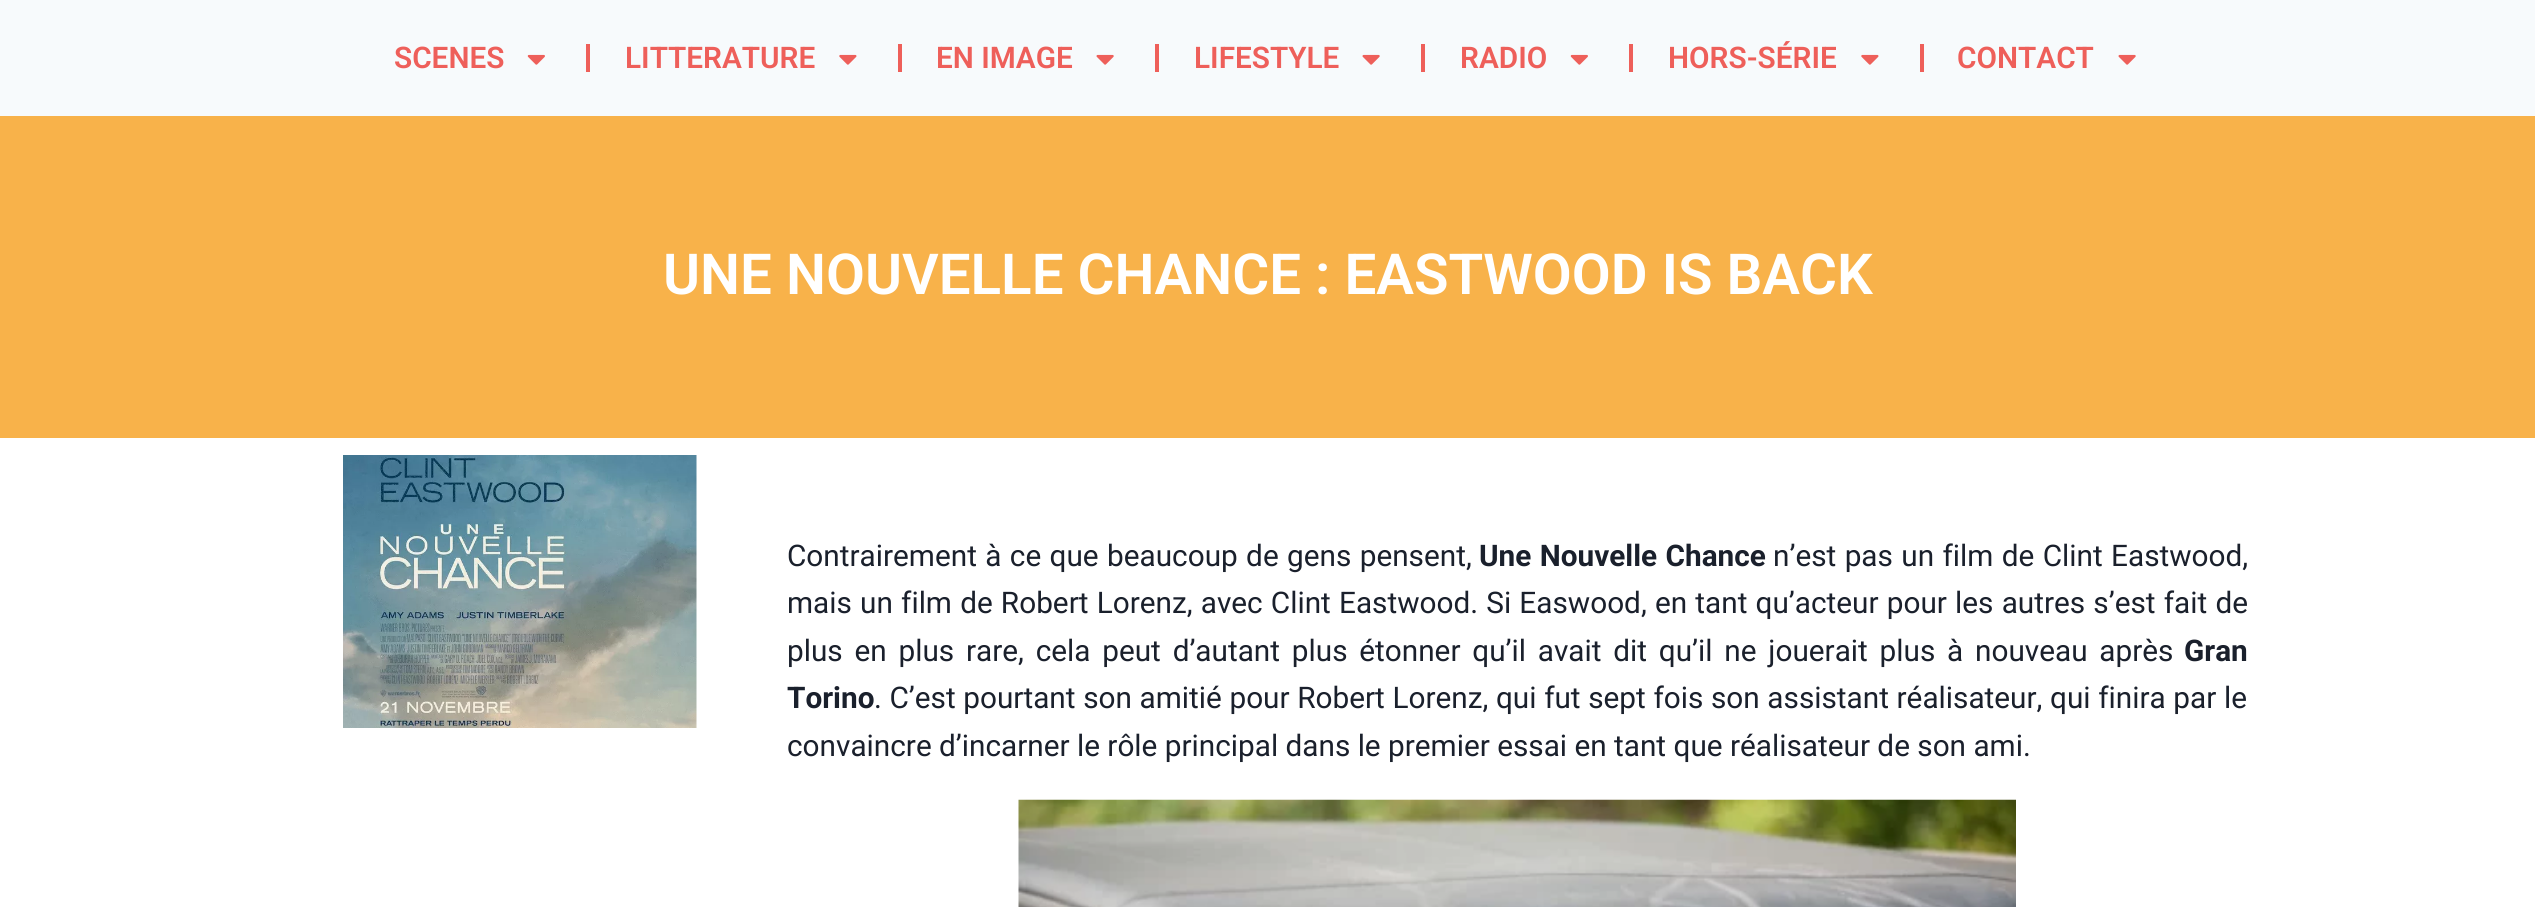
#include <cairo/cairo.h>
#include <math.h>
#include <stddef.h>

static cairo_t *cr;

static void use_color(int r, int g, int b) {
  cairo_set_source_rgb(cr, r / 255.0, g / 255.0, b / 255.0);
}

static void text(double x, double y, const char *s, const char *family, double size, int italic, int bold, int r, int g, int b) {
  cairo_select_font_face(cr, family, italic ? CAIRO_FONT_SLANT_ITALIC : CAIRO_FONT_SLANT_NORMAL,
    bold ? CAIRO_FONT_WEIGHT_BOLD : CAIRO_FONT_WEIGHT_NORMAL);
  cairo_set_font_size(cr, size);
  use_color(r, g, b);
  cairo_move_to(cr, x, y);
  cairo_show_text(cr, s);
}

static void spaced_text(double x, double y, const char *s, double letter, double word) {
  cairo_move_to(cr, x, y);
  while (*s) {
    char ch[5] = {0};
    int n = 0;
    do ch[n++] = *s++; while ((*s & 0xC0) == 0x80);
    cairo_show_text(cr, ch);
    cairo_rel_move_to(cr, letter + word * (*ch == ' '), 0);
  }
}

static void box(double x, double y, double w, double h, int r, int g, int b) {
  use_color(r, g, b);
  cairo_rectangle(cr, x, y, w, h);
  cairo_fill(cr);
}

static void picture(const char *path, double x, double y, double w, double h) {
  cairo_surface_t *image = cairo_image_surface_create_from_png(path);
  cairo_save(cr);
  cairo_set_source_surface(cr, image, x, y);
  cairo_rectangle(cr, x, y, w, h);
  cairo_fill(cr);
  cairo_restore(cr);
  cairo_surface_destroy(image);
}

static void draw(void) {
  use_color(247, 250, 252);
  cairo_paint(cr);
  picture("img_01.png", 527, 54, 18, 11);
  box(586, 44, 4, 28, 238, 95, 90);
  picture("img_02.png", 839, 54, 18, 11);
  box(898, 44, 4, 28, 238, 95, 90);
  picture("img_03.png", 1096, 54, 18, 11);
  box(1155, 44, 4, 28, 238, 95, 90);
  picture("img_03.png", 1362, 54, 18, 11);
  box(1421, 44, 4, 28, 238, 95, 90);
  picture("img_01.png", 1570, 54, 18, 11);
  box(1629, 44, 4, 28, 238, 95, 90);
  picture("img_02.png", 1861, 54, 18, 11);
  box(1920, 44, 4, 28, 238, 95, 90);
  picture("img_03.png", 2118, 54, 18, 11);
  box(0, 116, 2535, 322, 248, 178, 74);
  box(0, 438, 2535, 469, 255, 255, 255);
  picture("img_04.png", 343, 455, 354, 273);
  picture("img_05.png", 1018, 799, 998, 108);
  text(394, 68, "SCENES", "Roboto SemiBold", 29.75, 0, 0, 238, 95, 90);
  text(625, 68, "LITTERATURE", "Roboto SemiBold", 29.75, 0, 0, 238, 95, 90);
  text(936, 68, "EN IMAGE", "Roboto SemiBold", 29.75, 0, 0, 238, 95, 90);
  text(1194, 68, "LIFESTYLE", "Roboto SemiBold", 29.75, 0, 0, 238, 95, 90);
  text(1460, 68, "RADIO", "Roboto SemiBold", 29.75, 0, 0, 238, 95, 90);
  text(1668, 68, "HORS-SÉRIE", "Roboto SemiBold", 29.75, 0, 0, 238, 95, 90);
  text(1957, 68, "CONTACT", "Roboto SemiBold", 29.75, 0, 0, 238, 95, 90);
  text(663, 294, "UNE NOUVELLE CHANCE : EASTWOOD IS BACK", "Roboto SemiBold", 56.5, 0, 0, 255, 255, 255);
  cairo_select_font_face(cr, "Roboto", CAIRO_FONT_SLANT_NORMAL, CAIRO_FONT_WEIGHT_NORMAL);
  cairo_set_font_size(cr, 29.75);
  use_color(26, 32, 44);
  spaced_text(787, 566, "Contrairement à ce que beaucoup de gens pensent,", 0, 1);
  cairo_select_font_face(cr, "Roboto", CAIRO_FONT_SLANT_NORMAL, CAIRO_FONT_WEIGHT_BOLD);
  spaced_text(1479, 566, "Une Nouvelle Chance", 0, 1);
  cairo_select_font_face(cr, "Roboto", CAIRO_FONT_SLANT_NORMAL, CAIRO_FONT_WEIGHT_NORMAL);
  spaced_text(1773, 566, "n’est pas un film de Clint Eastwood,", 0, 1);
  spaced_text(787, 613, "mais un film de Robert Lorenz, avec Clint Eastwood. Si Easwood, en tant qu’acteur pour les autres s’est fait de", 0, 0.8);
  spaced_text(787, 661, "plus en plus rare, cela peut d’autant plus étonner qu’il avait dit qu’il ne jouerait plus à nouveau après", 0, 4.4);
  text(2184, 661, "Gran", "Roboto", 29.75, 0, 1, 26, 32, 44);
  text(787, 708, "Torino", "Roboto", 29.75, 0, 1, 26, 32, 44);
  cairo_select_font_face(cr, "Roboto", CAIRO_FONT_SLANT_NORMAL, CAIRO_FONT_WEIGHT_NORMAL);
  spaced_text(874, 708, ". C’est pourtant son amitié pour Robert Lorenz, qui fut sept fois son assistant réalisateur, qui finira par le", 0, 0.25);
  text(787, 756, "convaincre d’incarner le rôle principal dans le premier essai en tant que réalisateur de son ami.", "Roboto", 29.75, 0, 0, 26, 32, 44);
}

int main(void) {
  cairo_surface_t *surface = cairo_image_surface_create(CAIRO_FORMAT_RGB24, 2535, 907);
  cr = cairo_create(surface);
  cairo_font_options_t *options = cairo_font_options_create();
  cairo_font_options_set_hint_metrics(options, CAIRO_HINT_METRICS_OFF);
  cairo_font_options_set_hint_style(options, CAIRO_HINT_STYLE_NONE);
  cairo_set_font_options(cr, options);
  cairo_set_miter_limit(cr, 4);
  draw();
  cairo_surface_write_to_png(surface, "out.png");
  cairo_font_options_destroy(options);
  cairo_destroy(cr);
  cairo_surface_destroy(surface);
  return 0;
}
